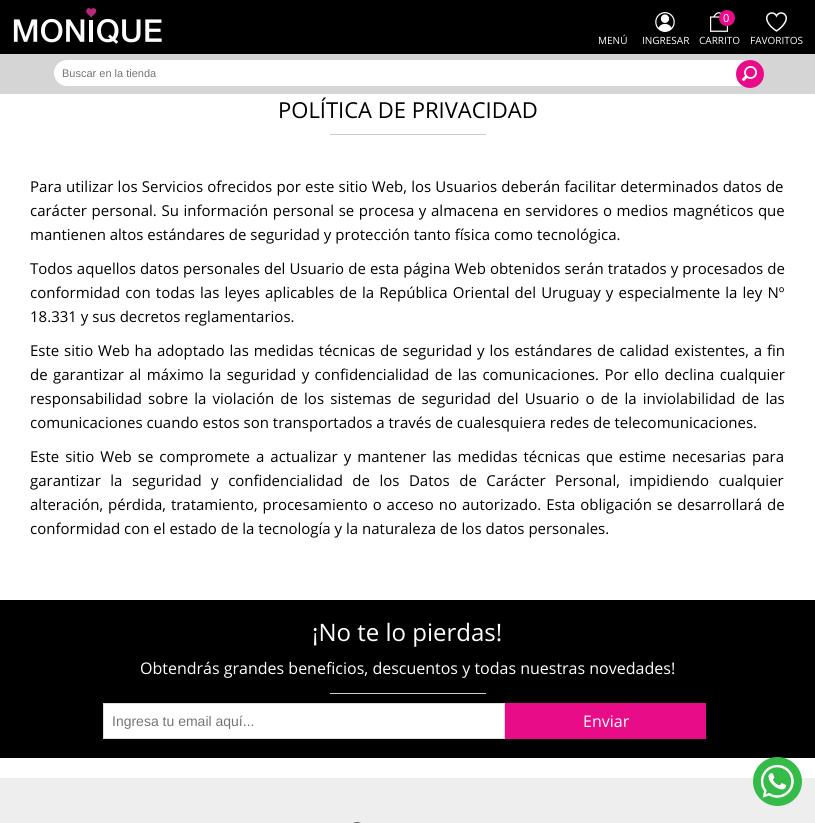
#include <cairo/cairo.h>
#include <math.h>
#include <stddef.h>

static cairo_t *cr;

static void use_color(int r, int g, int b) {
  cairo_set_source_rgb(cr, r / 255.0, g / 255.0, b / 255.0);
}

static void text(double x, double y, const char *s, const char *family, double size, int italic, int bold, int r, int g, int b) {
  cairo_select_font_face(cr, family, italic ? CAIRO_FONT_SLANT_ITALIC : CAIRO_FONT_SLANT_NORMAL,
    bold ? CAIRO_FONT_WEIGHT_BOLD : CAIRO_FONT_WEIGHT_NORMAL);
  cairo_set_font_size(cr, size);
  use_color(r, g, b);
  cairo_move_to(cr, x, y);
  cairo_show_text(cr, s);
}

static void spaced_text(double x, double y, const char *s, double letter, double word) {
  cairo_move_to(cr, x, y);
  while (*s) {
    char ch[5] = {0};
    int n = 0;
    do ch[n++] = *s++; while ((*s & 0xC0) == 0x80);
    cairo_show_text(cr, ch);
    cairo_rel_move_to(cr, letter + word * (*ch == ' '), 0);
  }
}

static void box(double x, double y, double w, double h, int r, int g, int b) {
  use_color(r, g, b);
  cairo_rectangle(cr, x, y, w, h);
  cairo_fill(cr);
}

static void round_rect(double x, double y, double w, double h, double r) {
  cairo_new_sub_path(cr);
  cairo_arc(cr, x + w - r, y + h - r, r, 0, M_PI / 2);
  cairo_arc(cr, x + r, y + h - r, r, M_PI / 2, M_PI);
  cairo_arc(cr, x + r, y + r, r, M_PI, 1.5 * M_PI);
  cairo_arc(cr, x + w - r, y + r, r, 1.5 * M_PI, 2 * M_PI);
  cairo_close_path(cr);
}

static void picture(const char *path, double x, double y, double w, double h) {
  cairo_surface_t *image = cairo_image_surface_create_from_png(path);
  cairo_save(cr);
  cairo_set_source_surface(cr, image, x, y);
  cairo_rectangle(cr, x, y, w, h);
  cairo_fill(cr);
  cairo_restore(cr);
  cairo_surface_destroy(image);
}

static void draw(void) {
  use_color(255, 255, 255);
  cairo_paint(cr);
  box(0, 0, 815, 54, 0, 0, 0);
  picture("img_01.png", 13, 8, 149, 36);
  picture("img_02.png", 655, 12, 20, 20);
  picture("img_03.png", 710, 12, 18, 20);
  use_color(234, 11, 138);
  cairo_arc(cr, 727, 18, 8, 0, 2 * M_PI);
  cairo_fill(cr);
  picture("img_04.png", 766, 12, 21, 20);
  box(0, 54, 815, 40, 213, 213, 213);
  use_color(255, 255, 255);
  round_rect(54, 60, 707, 26, 13);
  cairo_fill(cr);
  use_color(234, 11, 138);
  cairo_arc(cr, 750, 74, 14, 0, 2 * M_PI);
  cairo_fill(cr);
  picture("img_05.png", 742, 66, 15, 15);
  box(330, 134, 156, 1, 204, 204, 204);
  box(0, 600, 815, 158, 0, 0, 0);
  box(330, 693, 156, 1, 204, 204, 204);
  use_color(255, 255, 255);
  cairo_rectangle(cr, 103.5, 703.5, 401, 35);
  cairo_fill_preserve(cr);
  use_color(221, 221, 221);
  cairo_set_line_width(cr, 1);
  cairo_stroke(cr);
  box(505, 703, 201, 36, 232, 12, 136);
  box(0, 778, 815, 45, 238, 238, 238);
  picture("img_06.png", 753, 757, 49, 49);
  round_rect(349.5, 822.5, 15, 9, 7.5);
  use_color(102, 102, 102);
  cairo_stroke(cr);
  text(598, 44, "MENÚ", "Open Sans", 10, 0, 0, 255, 255, 255);
  text(642, 44, "INGRESAR", "Open Sans", 10, 0, 0, 255, 255, 255);
  cairo_set_font_size(cr, 11);
  spaced_text(723, 22, "0", -1, 0);
  text(699, 44, "CARRITO", "Open Sans", 10, 0, 0, 255, 255, 255);
  text(750, 44, "FAVORITOS", "Open Sans", 10, 0, 0, 255, 255, 255);
  text(62, 77, "Buscar en la tienda", "Liberation Sans", 11, 0, 0, 117, 117, 117);
  text(278, 118, "POLÍTICA DE PRIVACIDAD", "Open Sans", 22, 0, 0, 0, 0, 0);
  cairo_set_font_size(cr, 15);
  spaced_text(30, 192, "Para utilizar los Servicios ofrecidos por este sitio Web, los Usuarios deberán facilitar determinados datos de", 0, 0.3);
  spaced_text(30, 216, "carácter personal. Su información personal se procesa y almacena en servidores o medios magnéticos que", 0, 0.7);
  text(30, 240, "mantienen altos estándares de seguridad y protección tanto física como tecnológica.", "Open Sans", 15, 0, 0, 0, 0, 0);
  spaced_text(30, 274, "Todos aquellos datos personales del Usuario de esta página Web obtenidos serán tratados y procesados de", 0, 0.2);
  spaced_text(30, 298, "conformidad con todas las leyes aplicables de la República Oriental del Uruguay y especialmente la ley Nº", 0, 1.25);
  text(30, 322, "18.331 y sus decretos reglamentarios.", "Open Sans", 15, 0, 0, 0, 0, 0);
  spaced_text(30, 356, "Este sitio Web ha adoptado las medidas técnicas de seguridad y los estándares de calidad existentes, a fin", 0, 1);
  spaced_text(30, 380, "de garantizar al máximo la seguridad y confidencialidad de las comunicaciones. Por ello declina cualquier", 0, 1.5);
  spaced_text(30, 404, "responsabilidad sobre la violación de los sistemas de seguridad del Usuario o de la inviolabilidad de las", 0, 2.25);
  text(30, 428, "comunicaciones cuando estos son transportados a través de cualesquiera redes de telecomunicaciones.", "Open Sans", 15, 0, 0, 0, 0, 0);
  spaced_text(30, 462, "Este sitio Web se compromete a actualizar y mantener las medidas técnicas que estime necesarias para", 0, 2.1);
  spaced_text(30, 486, "garantizar la seguridad y confidencialidad de los Datos de Carácter Personal, impidiendo cualquier", 0, 5.6);
  spaced_text(30, 510, "alteración, pérdida, tratamiento, procesamiento o acceso no autorizado. Esta obligación se desarrollará de", 0, 1);
  text(30, 534, "conformidad con el estado de la tecnología y la naturaleza de los datos personales.", "Open Sans", 15, 0, 0, 0, 0, 0);
  text(312, 641, "¡No te lo pierdas!", "Open Sans", 24, 0, 0, 255, 255, 255);
  text(140, 674, "Obtendrás grandes beneficios, descuentos y todas nuestras novedades!", "Open Sans", 16, 0, 0, 255, 255, 255);
  text(112, 726, "Ingresa tu email aquí...", "Liberation Sans", 14, 0, 0, 117, 117, 117);
  text(583, 727, "Enviar", "Open Sans", 16, 0, 0, 255, 255, 255);
}

int main(void) {
  cairo_surface_t *surface = cairo_image_surface_create(CAIRO_FORMAT_RGB24, 815, 823);
  cr = cairo_create(surface);
  cairo_font_options_t *options = cairo_font_options_create();
  cairo_font_options_set_hint_metrics(options, CAIRO_HINT_METRICS_OFF);
  cairo_font_options_set_hint_style(options, CAIRO_HINT_STYLE_NONE);
  cairo_set_font_options(cr, options);
  cairo_set_miter_limit(cr, 4);
  draw();
  cairo_surface_write_to_png(surface, "out.png");
  cairo_font_options_destroy(options);
  cairo_destroy(cr);
  cairo_surface_destroy(surface);
  return 0;
}
